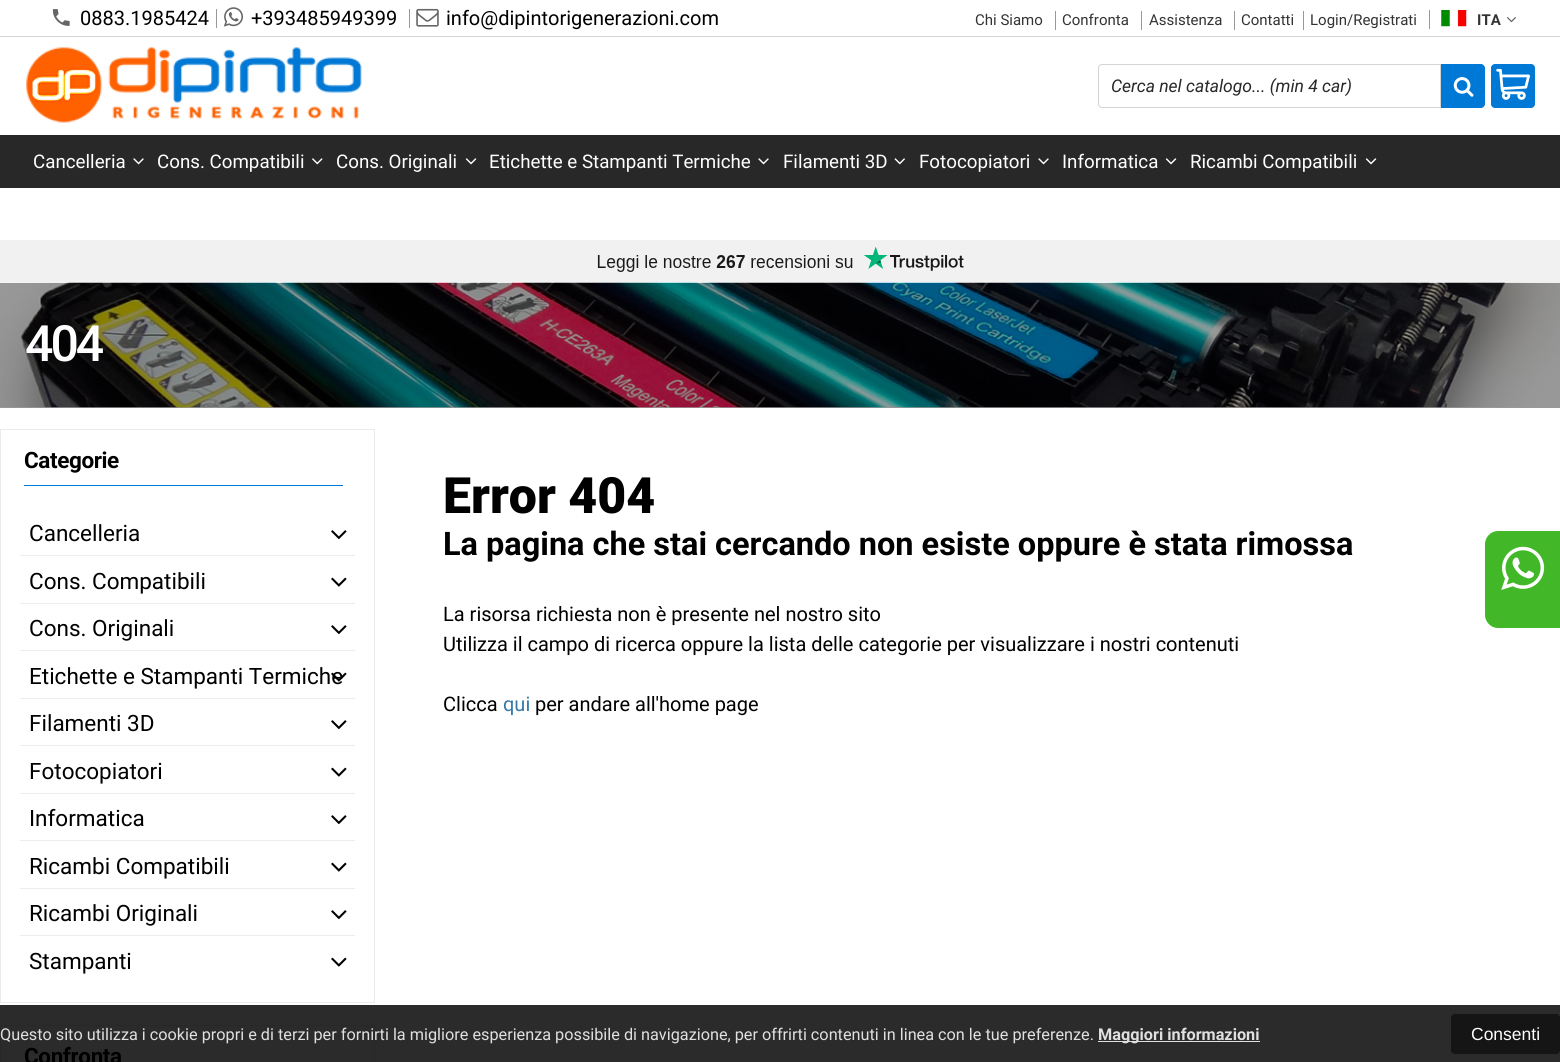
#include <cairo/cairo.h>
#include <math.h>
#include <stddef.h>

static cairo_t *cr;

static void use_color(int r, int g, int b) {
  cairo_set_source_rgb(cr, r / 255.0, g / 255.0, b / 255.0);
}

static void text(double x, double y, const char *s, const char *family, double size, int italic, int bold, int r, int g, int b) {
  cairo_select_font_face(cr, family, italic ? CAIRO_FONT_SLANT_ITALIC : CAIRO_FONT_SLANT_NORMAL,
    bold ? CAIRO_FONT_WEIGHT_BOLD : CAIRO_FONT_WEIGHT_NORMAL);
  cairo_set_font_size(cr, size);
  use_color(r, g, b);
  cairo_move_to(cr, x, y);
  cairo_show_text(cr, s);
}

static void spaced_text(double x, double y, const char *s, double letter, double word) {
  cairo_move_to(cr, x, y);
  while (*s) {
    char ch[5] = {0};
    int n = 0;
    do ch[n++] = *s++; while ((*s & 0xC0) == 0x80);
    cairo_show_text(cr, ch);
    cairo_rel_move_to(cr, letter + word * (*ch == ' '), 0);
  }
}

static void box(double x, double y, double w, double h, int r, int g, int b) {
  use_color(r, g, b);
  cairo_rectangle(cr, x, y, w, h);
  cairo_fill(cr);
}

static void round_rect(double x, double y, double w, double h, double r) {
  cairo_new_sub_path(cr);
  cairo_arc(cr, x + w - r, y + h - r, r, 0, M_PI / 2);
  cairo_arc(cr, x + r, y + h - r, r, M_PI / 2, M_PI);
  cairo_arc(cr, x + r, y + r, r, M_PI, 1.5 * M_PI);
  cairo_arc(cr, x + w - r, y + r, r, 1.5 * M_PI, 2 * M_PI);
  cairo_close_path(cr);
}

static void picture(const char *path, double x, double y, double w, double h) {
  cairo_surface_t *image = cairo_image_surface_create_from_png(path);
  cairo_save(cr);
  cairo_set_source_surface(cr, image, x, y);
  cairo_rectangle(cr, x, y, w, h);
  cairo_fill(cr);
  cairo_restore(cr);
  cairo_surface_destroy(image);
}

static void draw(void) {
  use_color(255, 255, 255);
  cairo_paint(cr);
  box(0, 1005, 1560, 57, 43, 43, 43);
  box(0, 407, 1560, 1, 153, 153, 153);
  box(0, 36, 1560, 1, 214, 212, 212);
  picture("img_01.png", 52, 9, 18, 17);
  box(216, 9, 1, 19, 152, 152, 152);
  picture("img_02.png", 223, 7, 20, 20);
  box(409, 9, 1, 19, 152, 152, 152);
  picture("img_03.png", 416, 8, 23, 19);
  box(1055, 11, 1, 19, 152, 152, 152);
  box(1141, 11, 1, 19, 152, 152, 152);
  box(1234, 11, 1, 19, 152, 152, 152);
  box(1303, 11, 1, 19, 152, 152, 152);
  box(1429, 10, 1, 19, 152, 152, 152);
  picture("img_04.png", 1441, 10, 26, 17);
  picture("img_05.png", 1507, 17, 9, 6);
  picture("img_06.png", 26, 47, 336, 76);
  cairo_new_path(cr);
  cairo_move_to(cr, 1102, 64.5);
  cairo_line_to(cr, 1440.5, 64.5);
  cairo_line_to(cr, 1440.5, 107.5);
  cairo_line_to(cr, 1102, 107.5);
  cairo_curve_to(cr, 1100, 107.5, 1098.5, 106, 1098.5, 104);
  cairo_line_to(cr, 1098.5, 68);
  cairo_curve_to(cr, 1098.5, 66, 1100, 64.5, 1102, 64.5);
  cairo_close_path(cr);
  use_color(213, 212, 212);
  cairo_set_line_width(cr, 1);
  cairo_stroke(cr);
  use_color(0, 120, 213);
  cairo_new_path(cr);
  cairo_move_to(cr, 1441, 64);
  cairo_line_to(cr, 1481, 64);
  cairo_curve_to(cr, 1483, 64, 1485, 66, 1485, 68);
  cairo_line_to(cr, 1485, 104);
  cairo_curve_to(cr, 1485, 106, 1483, 108, 1481, 108);
  cairo_line_to(cr, 1441, 108);
  cairo_close_path(cr);
  cairo_fill(cr);
  picture("img_07.png", 1453, 77, 21, 20);
  round_rect(1491, 64, 44, 44, 4);
  cairo_fill(cr);
  picture("img_08.png", 1496, 68, 34, 32);
  box(0, 135, 1560, 53, 40, 40, 40);
  picture("img_09.png", 133, 158, 11, 7);
  picture("img_10.png", 312, 158, 11, 7);
  picture("img_11.png", 465, 158, 12, 7);
  picture("img_09.png", 758, 158, 11, 7);
  picture("img_12.png", 894, 158, 11, 7);
  picture("img_09.png", 1038, 158, 11, 7);
  picture("img_11.png", 1165, 158, 12, 7);
  picture("img_11.png", 1365, 158, 12, 7);
  box(1098, 1041, 162, 1, 224, 224, 224);
  use_color(21, 21, 21);
  round_rect(1451, 1014, 109, 40, 4);
  cairo_fill(cr);
  box(0, 240, 1560, 43, 241, 241, 241);
  picture("img_13.png", 597, 246, 367, 26);
  picture("img_14.png", 0, 282, 1560, 126);
  cairo_rectangle(cr, 0.5, 429.5, 374, 573);
  use_color(235, 235, 235);
  cairo_stroke(cr);
  box(24, 485, 319, 1, 0, 120, 213);
  picture("img_15.png", 331, 530, 16, 10);
  box(20, 555, 335, 1, 236, 236, 236);
  picture("img_16.png", 331, 577, 16, 10);
  box(20, 603, 335, 1, 236, 236, 236);
  picture("img_15.png", 331, 625, 16, 10);
  box(20, 650, 335, 1, 236, 236, 236);
  picture("img_16.png", 331, 672, 16, 10);
  box(20, 698, 335, 1, 236, 236, 236);
  picture("img_15.png", 331, 720, 16, 10);
  box(20, 745, 335, 1, 236, 236, 236);
  picture("img_16.png", 331, 767, 16, 10);
  box(20, 793, 335, 1, 236, 236, 236);
  picture("img_15.png", 331, 815, 16, 10);
  box(20, 840, 335, 1, 236, 236, 236);
  picture("img_16.png", 331, 862, 16, 10);
  box(20, 888, 335, 1, 236, 236, 236);
  picture("img_15.png", 331, 910, 16, 10);
  box(20, 935, 335, 1, 236, 236, 236);
  picture("img_16.png", 331, 957, 16, 10);
  cairo_rectangle(cr, 0.5, 1025.5, 374, 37);
  use_color(40, 40, 40);
  cairo_stroke(cr);
  use_color(66, 183, 40);
  cairo_new_path(cr);
  cairo_move_to(cr, 1498, 531);
  cairo_line_to(cr, 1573, 531);
  cairo_line_to(cr, 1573, 628);
  cairo_line_to(cr, 1498, 628);
  cairo_curve_to(cr, 1491, 628, 1485, 622, 1485, 615);
  cairo_line_to(cr, 1485, 544);
  cairo_curve_to(cr, 1485, 537, 1491, 531, 1498, 531);
  cairo_close_path(cr);
  cairo_fill(cr);
  picture("img_17.png", 1501, 546, 44, 44);
  text(80, 25, "0883.1985424", "Roboto", 20, 0, 0, 0, 0, 0);
  text(251, 25, "+393485949399", "Roboto", 20, 0, 0, 0, 0, 0);
  text(446, 25, "info@dipintorigenerazioni.com", "Roboto", 20, 0, 0, 0, 0, 0);
  text(975, 25, "Chi Siamo", "Roboto", 15, 0, 0, 51, 51, 51);
  text(1062, 25, "Confronta", "Roboto", 15, 0, 0, 51, 51, 51);
  text(1149, 25, "Assistenza", "Roboto", 15, 0, 0, 51, 51, 51);
  text(1241, 25, "Contatti", "Roboto", 15, 0, 0, 51, 51, 51);
  text(1310, 25, "Login/Registrati", "Roboto", 15, 0, 0, 51, 51, 51);
  text(1477, 25, "ITA", "Roboto", 15, 0, 1, 51, 51, 51);
  text(1111, 92, "Cerca nel catalogo... (min 4 car)", "Roboto", 17.5, 1, 0, 40, 40, 40);
  text(33, 168, "Cancelleria", "Roboto", 18.75, 0, 0, 255, 255, 255);
  text(157, 168, "Cons. Compatibili", "Roboto", 18.75, 0, 0, 255, 255, 255);
  text(336, 168, "Cons. Originali", "Roboto", 18.75, 0, 0, 255, 255, 255);
  text(489, 168, "Etichette e Stampanti Termiche", "Roboto", 18.75, 0, 0, 255, 255, 255);
  text(783, 168, "Filamenti 3D", "Roboto", 18.75, 0, 0, 255, 255, 255);
  text(919, 168, "Fotocopiatori", "Roboto", 18.75, 0, 0, 255, 255, 255);
  text(1062, 168, "Informatica", "Roboto", 18.75, 0, 0, 255, 255, 255);
  text(1190, 168, "Ricambi Compatibili", "Roboto", 18.75, 0, 0, 255, 255, 255);
  text(0, 1040, "Questo sito utilizza i cookie propri e di terzi per fornirti la migliore esperienza possibile di navigazione, per offrirti contenuti in linea con le tue preferenze.", "Roboto", 16.25, 0, 0, 224, 224, 224);
  text(1098, 1040, "Maggiori informazioni", "Roboto", 16.25, 0, 1, 224, 224, 224);
  text(1471, 1040, "Consenti", "Liberation Sans", 17.5, 0, 0, 255, 255, 255);
  cairo_select_font_face(cr, "Roboto Medium", CAIRO_FONT_SLANT_NORMAL, CAIRO_FONT_WEIGHT_NORMAL);
  cairo_set_font_size(cr, 50);
  spaced_text(25, 361, "404", -3, 0);
  cairo_select_font_face(cr, "Roboto", CAIRO_FONT_SLANT_NORMAL, CAIRO_FONT_WEIGHT_BOLD);
  cairo_set_font_size(cr, 22.5);
  use_color(0, 0, 0);
  spaced_text(24, 468, "Categorie", -0.4, 0);
  text(29, 541, "Cancelleria", "Roboto", 22.5, 0, 0, 0, 0, 0);
  text(29, 589, "Cons. Compatibili", "Roboto", 22.5, 0, 0, 0, 0, 0);
  text(29, 636, "Cons. Originali", "Roboto", 22.5, 0, 0, 0, 0, 0);
  text(29, 684, "Etichette e Stampanti Termiche", "Roboto", 22.5, 0, 0, 0, 0, 0);
  text(29, 731, "Filamenti 3D", "Roboto", 22.5, 0, 0, 0, 0, 0);
  text(29, 779, "Fotocopiatori", "Roboto", 22.5, 0, 0, 0, 0, 0);
  text(29, 826, "Informatica", "Roboto", 22.5, 0, 0, 0, 0, 0);
  text(29, 874, "Ricambi Compatibili", "Roboto", 22.5, 0, 0, 0, 0, 0);
  text(29, 921, "Ricambi Originali", "Roboto", 22.5, 0, 0, 0, 0, 0);
  text(29, 969, "Stampanti", "Roboto", 22.5, 0, 0, 0, 0, 0);
  cairo_select_font_face(cr, "Roboto", CAIRO_FONT_SLANT_NORMAL, CAIRO_FONT_WEIGHT_BOLD);
  spaced_text(24, 1064, "Confronta", -0.4, 0);
  text(443, 513, "Error 404", "Roboto Black", 50, 0, 0, 0, 0, 0);
  text(443, 555, "La pagina che stai cercando non esiste oppure è stata rimossa", "Roboto", 32.5, 0, 1, 0, 0, 0);
  text(443, 621, "La risorsa richiesta non è presente nel nostro sito", "Roboto", 20, 0, 0, 0, 0, 0);
  text(443, 651, "Utilizza il campo di ricerca oppure la lista delle categorie per visualizzare i nostri contenuti", "Roboto", 20, 0, 0, 0, 0, 0);
  text(443, 711, "Clicca", "Roboto", 20, 0, 0, 0, 0, 0);
  text(503, 711, "qui", "Roboto", 20, 0, 0, 55, 121, 169);
  text(535, 711, "per andare all'home page", "Roboto", 20, 0, 0, 0, 0, 0);
}

int main(void) {
  cairo_surface_t *surface = cairo_image_surface_create(CAIRO_FORMAT_RGB24, 1560, 1062);
  cr = cairo_create(surface);
  cairo_font_options_t *options = cairo_font_options_create();
  cairo_font_options_set_hint_metrics(options, CAIRO_HINT_METRICS_OFF);
  cairo_font_options_set_hint_style(options, CAIRO_HINT_STYLE_NONE);
  cairo_set_font_options(cr, options);
  cairo_set_miter_limit(cr, 4);
  draw();
  cairo_surface_write_to_png(surface, "out.png");
  cairo_font_options_destroy(options);
  cairo_destroy(cr);
  cairo_surface_destroy(surface);
  return 0;
}
